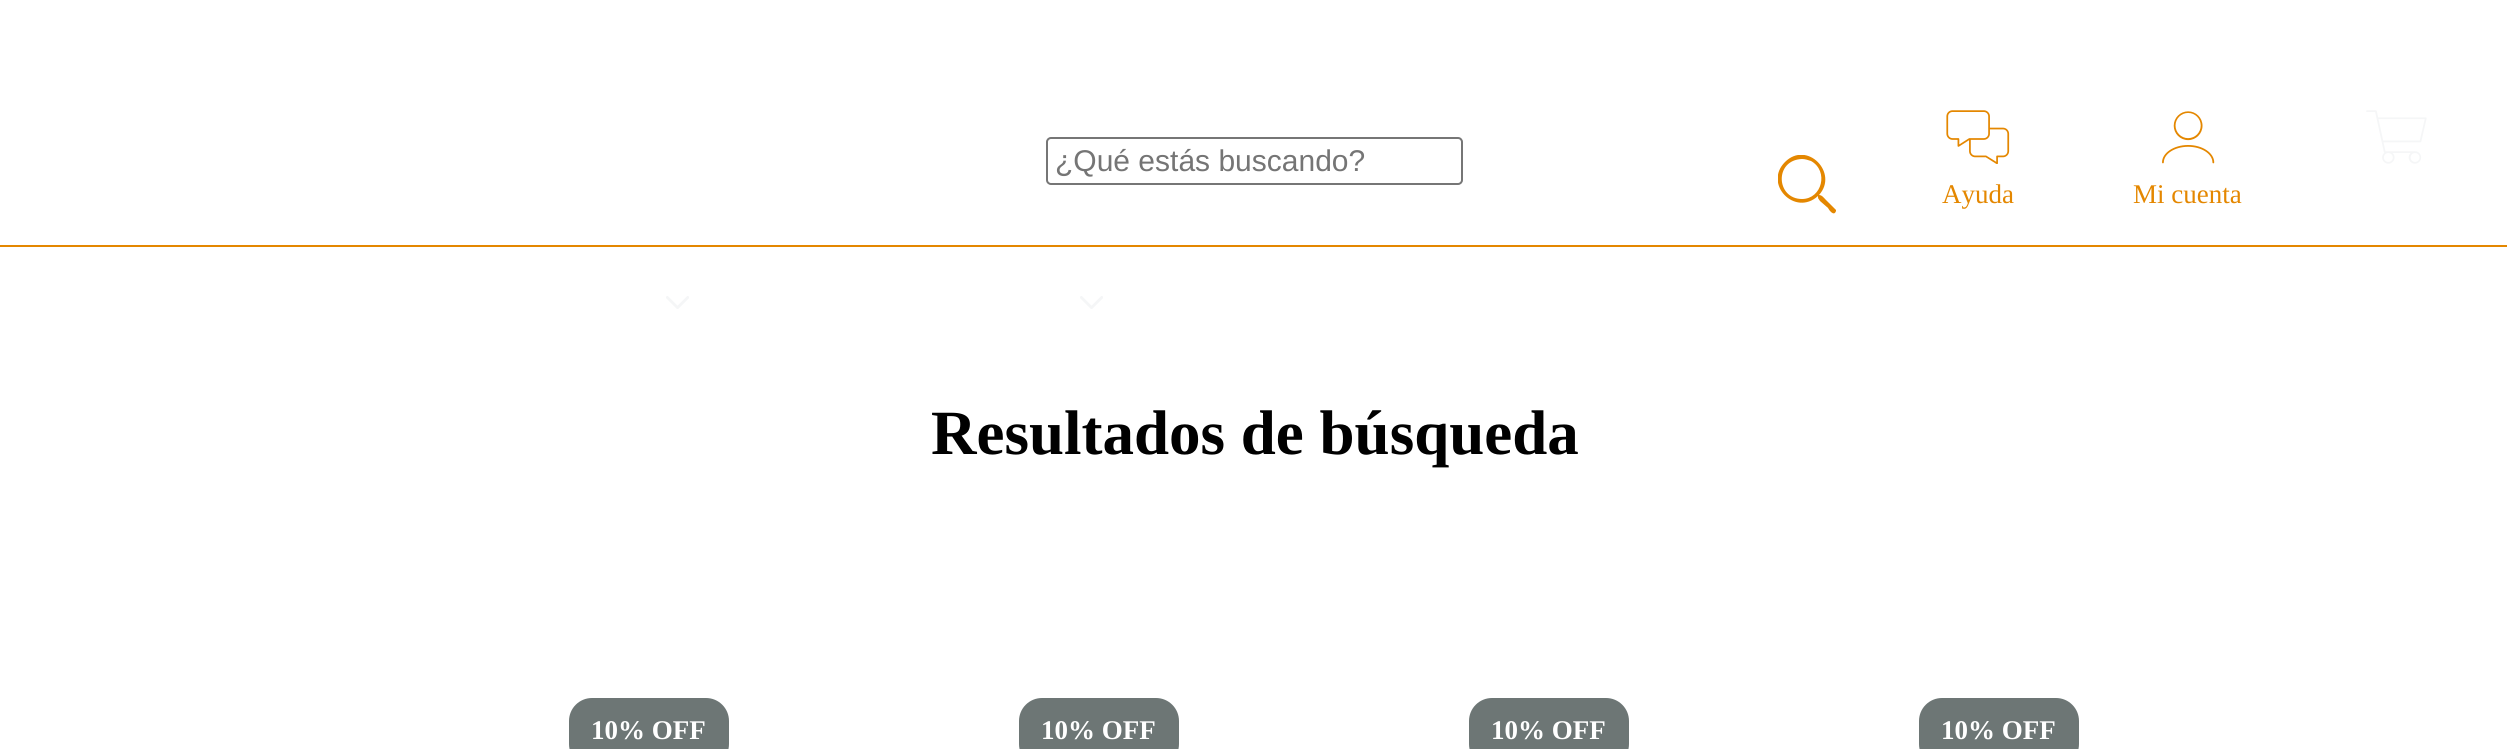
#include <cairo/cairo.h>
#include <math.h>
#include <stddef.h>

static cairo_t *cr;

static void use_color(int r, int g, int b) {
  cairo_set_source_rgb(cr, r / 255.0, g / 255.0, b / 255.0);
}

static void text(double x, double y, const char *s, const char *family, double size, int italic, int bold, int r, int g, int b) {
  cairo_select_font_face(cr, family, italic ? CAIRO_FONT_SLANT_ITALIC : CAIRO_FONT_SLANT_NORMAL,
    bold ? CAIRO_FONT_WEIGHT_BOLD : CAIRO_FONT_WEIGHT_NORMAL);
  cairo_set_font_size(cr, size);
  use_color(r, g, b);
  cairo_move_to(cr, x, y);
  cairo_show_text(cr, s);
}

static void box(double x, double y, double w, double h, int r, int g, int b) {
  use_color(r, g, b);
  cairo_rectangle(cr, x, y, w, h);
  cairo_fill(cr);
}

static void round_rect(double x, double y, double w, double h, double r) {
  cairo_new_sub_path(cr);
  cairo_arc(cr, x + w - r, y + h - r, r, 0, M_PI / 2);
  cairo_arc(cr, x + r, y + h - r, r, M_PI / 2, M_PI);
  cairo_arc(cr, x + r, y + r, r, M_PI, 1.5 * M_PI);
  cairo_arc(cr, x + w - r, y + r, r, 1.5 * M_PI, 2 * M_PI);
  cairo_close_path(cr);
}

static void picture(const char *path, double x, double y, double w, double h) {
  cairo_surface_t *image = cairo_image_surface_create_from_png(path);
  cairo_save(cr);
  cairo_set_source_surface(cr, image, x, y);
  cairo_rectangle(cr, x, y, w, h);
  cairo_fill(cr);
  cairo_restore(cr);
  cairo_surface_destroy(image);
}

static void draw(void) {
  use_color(255, 255, 255);
  cairo_paint(cr);
  round_rect(1047, 138, 415, 46, 4);
  use_color(118, 118, 118);
  cairo_stroke(cr);
  cairo_save(cr);
  cairo_rectangle(cr, 1778, 155, 59, 60);
  cairo_clip(cr);
  use_color(228, 135, 0);
  cairo_new_path(cr);
  cairo_move_to(cr, 1836, 210);
  cairo_line_to(cr, 1826, 200);
  cairo_curve_to(cr, 1824, 198, 1822, 195, 1819, 195);
  cairo_curve_to(cr, 1839, 173, 1807, 140, 1785, 162);
  cairo_curve_to(cr, 1763, 184, 1795, 217, 1818, 196);
  cairo_curve_to(cr, 1818, 199, 1818, 198, 1820, 201);
  cairo_line_to(cr, 1828, 208);
  cairo_curve_to(cr, 1829, 210, 1834, 217, 1836, 211);
  cairo_close_path(cr);
  cairo_move_to(cr, 1802, 199);
  cairo_curve_to(cr, 1776, 199, 1774, 160, 1802, 159);
  cairo_curve_to(cr, 1805, 159, 1808, 160, 1811, 161);
  cairo_curve_to(cr, 1829, 171, 1822, 199, 1802, 199);
  cairo_close_path(cr);
  cairo_fill(cr);
  cairo_restore(cr);
  picture("img_01.png", 2366, 110, 61, 54);
  picture("img_02.png", 1946, 110, 64, 54);
  picture("img_03.png", 2162, 111, 53, 53);
  box(0, 245, 2507, 2, 228, 135, 0);
  picture("img_04.png", 666, 296, 23, 13);
  picture("img_04.png", 1080, 296, 23, 13);
  use_color(109, 118, 117);
  round_rect(569, 698, 160, 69, 23);
  cairo_fill(cr);
  round_rect(1019, 698, 160, 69, 23);
  cairo_fill(cr);
  round_rect(1469, 698, 160, 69, 23);
  cairo_fill(cr);
  round_rect(1919, 698, 160, 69, 23);
  cairo_fill(cr);
  text(1055, 171, "¿Qué estás buscando?", "Liberation Sans", 30, 0, 0, 117, 117, 117);
  text(1942, 203, "Ayuda", "Liberation Serif", 27, 0, 0, 228, 135, 0);
  text(2133, 203, "Mi cuenta", "Liberation Serif", 27, 0, 0, 228, 135, 0);
  text(931, 454, "Resultados de búsqueda", "Liberation Serif", 63, 0, 1, 0, 0, 0);
  text(591, 739, "10% OFF", "Liberation Serif", 27, 0, 1, 255, 255, 255);
  text(1041, 739, "10% OFF", "Liberation Serif", 27, 0, 1, 255, 255, 255);
  text(1491, 739, "10% OFF", "Liberation Serif", 27, 0, 1, 255, 255, 255);
  text(1941, 739, "10% OFF", "Liberation Serif", 27, 0, 1, 255, 255, 255);
}

int main(void) {
  cairo_surface_t *surface = cairo_image_surface_create(CAIRO_FORMAT_RGB24, 2507, 749);
  cr = cairo_create(surface);
  cairo_font_options_t *options = cairo_font_options_create();
  cairo_font_options_set_hint_metrics(options, CAIRO_HINT_METRICS_OFF);
  cairo_font_options_set_hint_style(options, CAIRO_HINT_STYLE_NONE);
  cairo_set_font_options(cr, options);
  cairo_set_miter_limit(cr, 4);
  draw();
  cairo_surface_write_to_png(surface, "out.png");
  cairo_font_options_destroy(options);
  cairo_destroy(cr);
  cairo_surface_destroy(surface);
  return 0;
}
